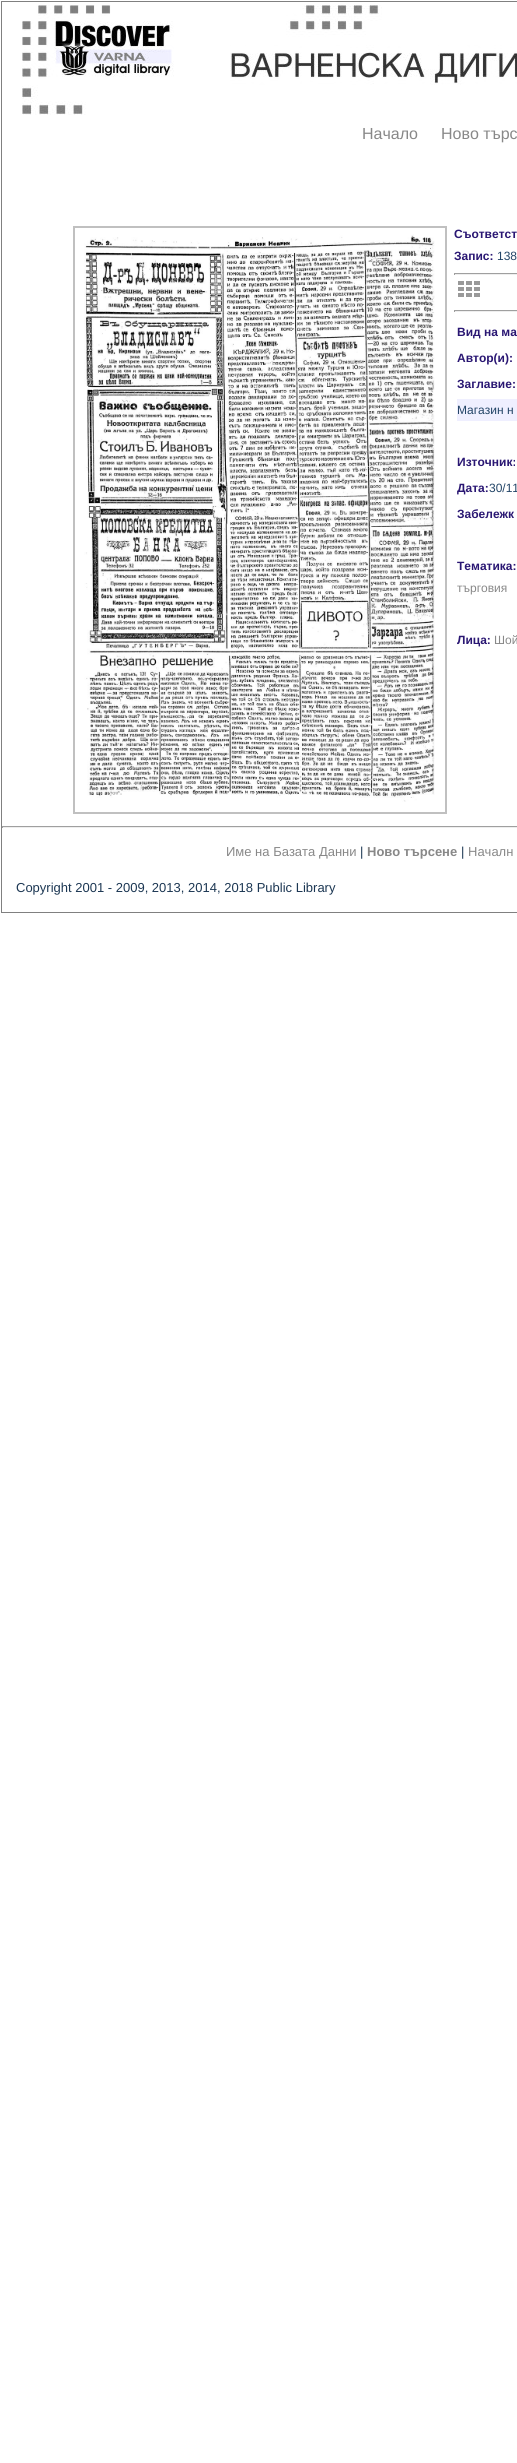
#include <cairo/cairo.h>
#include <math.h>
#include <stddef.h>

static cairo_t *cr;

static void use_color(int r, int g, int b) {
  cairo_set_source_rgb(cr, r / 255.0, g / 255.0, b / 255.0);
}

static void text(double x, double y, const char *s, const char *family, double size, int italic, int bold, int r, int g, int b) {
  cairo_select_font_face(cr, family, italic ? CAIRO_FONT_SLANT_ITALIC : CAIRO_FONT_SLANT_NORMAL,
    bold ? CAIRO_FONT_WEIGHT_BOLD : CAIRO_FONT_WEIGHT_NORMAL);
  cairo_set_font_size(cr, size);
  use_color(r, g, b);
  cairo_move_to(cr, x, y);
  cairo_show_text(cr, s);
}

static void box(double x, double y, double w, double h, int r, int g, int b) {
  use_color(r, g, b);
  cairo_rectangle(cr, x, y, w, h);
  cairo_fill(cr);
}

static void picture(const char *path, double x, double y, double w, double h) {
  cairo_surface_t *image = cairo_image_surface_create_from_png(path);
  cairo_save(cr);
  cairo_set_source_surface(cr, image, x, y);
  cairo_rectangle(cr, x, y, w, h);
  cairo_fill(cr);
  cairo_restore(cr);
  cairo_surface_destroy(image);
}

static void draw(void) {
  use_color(255, 255, 255);
  cairo_paint(cr);
  cairo_rectangle(cr, 1.5, 1.5, 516, 911);
  use_color(128, 128, 128);
  cairo_set_line_width(cr, 1);
  cairo_stroke(cr);
  picture("img_01.png", 22, 5, 495, 110);
  cairo_rectangle(cr, 74, 227, 372, 586);
  use_color(192, 192, 192);
  cairo_set_line_width(cr, 2);
  cairo_stroke(cr);
  picture("img_02.png", 84, 234, 351, 568);
  box(454, 273, 63, 1, 159, 159, 159);
  box(454, 274, 63, 1, 238, 238, 238);
  box(454, 273, 1, 2, 159, 159, 159);
  picture("img_03.png", 458, 281, 22, 16);
  box(454, 310, 63, 1, 159, 159, 159);
  box(454, 311, 63, 1, 238, 238, 238);
  box(454, 310, 1, 2, 159, 159, 159);
  box(457, 399, 60, 22, 239, 239, 255);
  box(2, 826, 515, 1, 159, 159, 159);
  box(2, 827, 515, 1, 238, 238, 238);
  box(2, 826, 1, 2, 159, 159, 159);
  text(362, 139, "Начало", "Liberation Sans", 16, 0, 0, 136, 136, 136);
  text(441, 139, "Ново търс", "Liberation Sans", 16, 0, 0, 136, 136, 136);
  text(454, 238, "Съответст", "Liberation Sans", 12, 0, 1, 42, 23, 115);
  text(454, 260, "Запис:", "Liberation Sans", 12, 0, 1, 42, 23, 115);
  text(497, 260, "138", "Liberation Sans", 12, 0, 0, 35, 69, 103);
  text(457, 336, "Вид на ма", "Liberation Sans", 12, 0, 1, 42, 23, 115);
  text(457, 362, "Автор(и):", "Liberation Sans", 12, 0, 1, 42, 23, 115);
  text(457, 388, "Заглавие:", "Liberation Sans", 12, 0, 1, 42, 23, 115);
  text(457, 414, "Магазин н", "Liberation Sans", 12, 0, 0, 35, 69, 103);
  text(457, 466, "Източник:", "Liberation Sans", 12, 0, 1, 42, 23, 115);
  text(457, 492, "Дата:", "Liberation Sans", 12, 0, 1, 42, 23, 115);
  text(489, 492, "30/11", "Liberation Sans", 12, 0, 0, 35, 69, 103);
  text(457, 518, "Забележк", "Liberation Sans", 12, 0, 1, 42, 23, 115);
  text(457, 570, "Тематика:", "Liberation Sans", 12, 0, 1, 42, 23, 115);
  text(457, 592, "търговия", "Liberation Sans", 12, 0, 0, 136, 136, 136);
  text(457, 644, "Лица:", "Liberation Sans", 12, 0, 1, 42, 23, 115);
  text(494, 644, "Шой", "Liberation Sans", 12, 0, 0, 136, 136, 136);
  text(226, 856, "Име на Базата Данни", "Liberation Sans", 13, 0, 0, 136, 136, 136);
  text(360, 856, "|", "Liberation Sans", 13, 0, 0, 28, 55, 83);
  text(367, 856, "Ново търсене", "Liberation Sans", 13, 0, 1, 136, 136, 136);
  text(461, 856, "|", "Liberation Sans", 13, 0, 0, 28, 55, 83);
  text(468, 856, "Началн", "Liberation Sans", 13, 0, 0, 136, 136, 136);
  text(16, 892, "Copyright 2001 - 2009, 2013, 2014, 2018 Public Library", "Liberation Sans", 13, 0, 0, 28, 55, 83);
}

int main(void) {
  cairo_surface_t *surface = cairo_image_surface_create(CAIRO_FORMAT_RGB24, 517, 2463);
  cr = cairo_create(surface);
  cairo_font_options_t *options = cairo_font_options_create();
  cairo_font_options_set_hint_metrics(options, CAIRO_HINT_METRICS_OFF);
  cairo_font_options_set_hint_style(options, CAIRO_HINT_STYLE_NONE);
  cairo_set_font_options(cr, options);
  cairo_set_miter_limit(cr, 4);
  draw();
  cairo_surface_write_to_png(surface, "out.png");
  cairo_font_options_destroy(options);
  cairo_destroy(cr);
  cairo_surface_destroy(surface);
  return 0;
}
